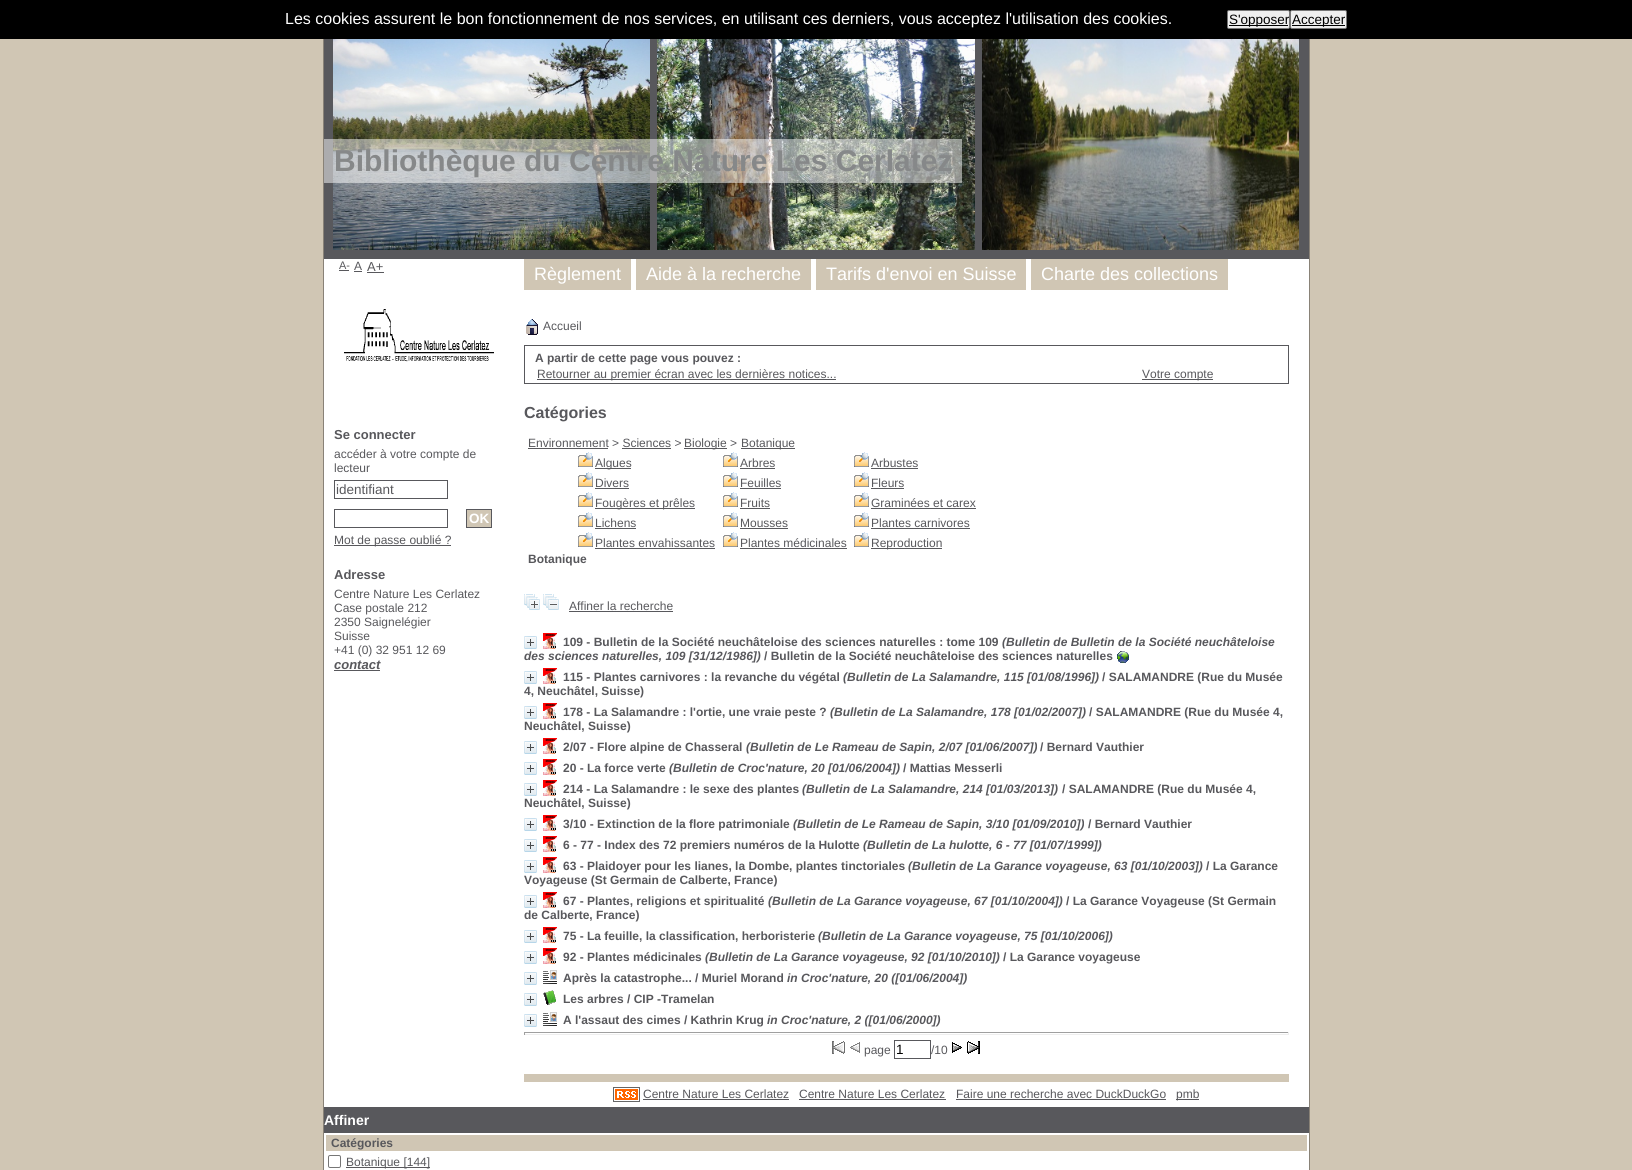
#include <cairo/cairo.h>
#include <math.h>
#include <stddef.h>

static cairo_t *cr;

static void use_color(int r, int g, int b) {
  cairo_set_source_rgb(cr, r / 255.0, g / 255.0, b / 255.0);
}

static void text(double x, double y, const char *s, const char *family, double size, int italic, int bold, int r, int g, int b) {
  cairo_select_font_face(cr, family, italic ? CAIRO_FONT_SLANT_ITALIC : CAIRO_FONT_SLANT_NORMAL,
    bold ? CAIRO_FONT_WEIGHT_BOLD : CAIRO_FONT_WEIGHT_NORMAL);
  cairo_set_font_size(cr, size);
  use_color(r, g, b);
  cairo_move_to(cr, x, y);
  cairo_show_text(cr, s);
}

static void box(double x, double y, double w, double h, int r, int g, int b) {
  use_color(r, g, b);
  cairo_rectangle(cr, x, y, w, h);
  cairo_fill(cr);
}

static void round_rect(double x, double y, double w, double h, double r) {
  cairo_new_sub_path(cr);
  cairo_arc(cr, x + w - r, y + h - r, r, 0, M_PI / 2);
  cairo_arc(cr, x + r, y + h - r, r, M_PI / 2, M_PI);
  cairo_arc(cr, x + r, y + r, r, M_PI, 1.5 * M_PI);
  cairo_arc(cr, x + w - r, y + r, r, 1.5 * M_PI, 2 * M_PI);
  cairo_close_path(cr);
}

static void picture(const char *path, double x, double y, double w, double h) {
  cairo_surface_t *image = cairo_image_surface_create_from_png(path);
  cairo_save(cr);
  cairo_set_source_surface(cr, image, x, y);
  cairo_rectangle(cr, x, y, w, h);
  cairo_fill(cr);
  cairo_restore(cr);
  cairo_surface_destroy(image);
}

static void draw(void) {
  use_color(208, 198, 180);
  cairo_paint(cr);
  box(0, 0, 1632, 39, 0, 0, 0);
  use_color(239, 239, 239);
  round_rect(1227.5, 10.5, 62, 18, 1.5);
  cairo_fill_preserve(cr);
  use_color(118, 118, 118);
  cairo_set_line_width(cr, 1);
  cairo_stroke(cr);
  box(1229, 25, 59, 1, 0, 0, 0);
  use_color(239, 239, 239);
  round_rect(1290.5, 10.5, 56, 18, 1.5);
  cairo_fill_preserve(cr);
  use_color(118, 118, 118);
  cairo_stroke(cr);
  box(1292, 25, 53, 1, 0, 0, 0);
  cairo_rectangle(cr, 323.5, 38.5, 986, 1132);
  cairo_set_source_rgba(cr, 0, 0, 0, 0.34);
  cairo_stroke(cr);
  box(324, 259, 985, 911, 255, 255, 255);
  box(324, 39, 985, 220, 88, 88, 92);
  picture("img_16.png", 333, 39, 317, 211);
  picture("img_17.png", 657, 39, 318, 211);
  cairo_set_source_rgba(cr, 1, 1, 1, 0.5);
  cairo_rectangle(cr, 324, 139, 638, 44);
  cairo_fill(cr);
  picture("img_01.png", 526, 319, 12, 16);
  cairo_rectangle(cr, 524.5, 345.5, 764, 38);
  use_color(88, 88, 92);
  cairo_stroke(cr);
  box(537, 379, 299, 1, 88, 88, 92);
  box(1142, 379, 71, 1, 88, 88, 92);
  box(528, 448, 80, 1, 88, 88, 92);
  box(622, 448, 49, 1, 88, 88, 92);
  box(684, 448, 43, 1, 88, 88, 92);
  box(741, 448, 54, 1, 88, 88, 92);
  picture("img_02.png", 578, 452, 15, 15);
  box(595, 468, 36, 1, 88, 88, 92);
  picture("img_02.png", 723, 452, 15, 15);
  box(740, 468, 35, 1, 88, 88, 92);
  picture("img_02.png", 854, 452, 15, 15);
  box(871, 468, 47, 1, 88, 88, 92);
  picture("img_02.png", 578, 472, 15, 15);
  box(595, 488, 34, 1, 88, 88, 92);
  picture("img_02.png", 723, 472, 15, 15);
  box(740, 488, 41, 1, 88, 88, 92);
  picture("img_02.png", 854, 472, 15, 15);
  box(871, 488, 33, 1, 88, 88, 92);
  picture("img_02.png", 578, 492, 15, 15);
  box(595, 508, 100, 1, 88, 88, 92);
  picture("img_02.png", 723, 492, 15, 15);
  box(740, 508, 30, 1, 88, 88, 92);
  picture("img_02.png", 854, 492, 15, 15);
  box(871, 508, 105, 1, 88, 88, 92);
  picture("img_02.png", 578, 512, 15, 15);
  box(595, 528, 41, 1, 88, 88, 92);
  picture("img_02.png", 723, 512, 15, 15);
  box(740, 528, 48, 1, 88, 88, 92);
  picture("img_02.png", 854, 512, 15, 15);
  box(871, 528, 99, 1, 88, 88, 92);
  picture("img_02.png", 578, 532, 15, 15);
  box(595, 548, 120, 1, 88, 88, 92);
  picture("img_02.png", 723, 532, 15, 15);
  box(740, 548, 107, 1, 88, 88, 92);
  picture("img_02.png", 854, 532, 15, 15);
  box(871, 548, 71, 1, 88, 88, 92);
  picture("img_03.png", 524, 594, 16, 16);
  picture("img_04.png", 543, 594, 16, 16);
  box(569, 611, 104, 1, 88, 88, 92);
  picture("img_05.png", 524, 636, 13, 13);
  picture("img_06.png", 543, 633, 14, 16);
  picture("img_07.png", 1117, 651, 12, 12);
  picture("img_05.png", 524, 671, 13, 13);
  picture("img_06.png", 543, 668, 14, 16);
  picture("img_05.png", 524, 706, 13, 13);
  picture("img_06.png", 543, 703, 14, 16);
  picture("img_05.png", 524, 741, 13, 13);
  picture("img_06.png", 543, 738, 14, 16);
  picture("img_05.png", 524, 762, 13, 13);
  picture("img_06.png", 543, 759, 14, 16);
  picture("img_05.png", 524, 783, 13, 13);
  picture("img_06.png", 543, 780, 14, 16);
  picture("img_05.png", 524, 818, 13, 13);
  picture("img_06.png", 543, 815, 14, 16);
  picture("img_05.png", 524, 839, 13, 13);
  picture("img_06.png", 543, 836, 14, 16);
  picture("img_05.png", 524, 860, 13, 13);
  picture("img_06.png", 543, 857, 14, 16);
  picture("img_05.png", 524, 895, 13, 13);
  picture("img_06.png", 543, 892, 14, 16);
  picture("img_05.png", 524, 930, 13, 13);
  picture("img_06.png", 543, 927, 14, 16);
  picture("img_05.png", 524, 951, 13, 13);
  picture("img_06.png", 543, 948, 14, 16);
  picture("img_05.png", 524, 972, 13, 13);
  picture("img_08.png", 543, 970, 14, 14);
  picture("img_05.png", 524, 993, 13, 13);
  picture("img_09.png", 543, 990, 13, 15);
  picture("img_05.png", 524, 1014, 13, 13);
  picture("img_08.png", 543, 1012, 14, 14);
  box(524, 1032, 765, 1, 159, 159, 159);
  box(1288, 1032, 1, 3, 238, 238, 238);
  box(524, 1034, 765, 1, 238, 238, 238);
  box(524, 1032, 1, 3, 159, 159, 159);
  picture("img_10.png", 832, 1041, 13, 13);
  picture("img_11.png", 850, 1042, 10, 11);
  cairo_rectangle(cr, 894.5, 1040.5, 36, 18);
  use_color(88, 88, 92);
  cairo_stroke(cr);
  picture("img_12.png", 952, 1042, 10, 11);
  picture("img_13.png", 967, 1041, 13, 13);
  box(524, 1074, 765, 8, 208, 198, 180);
  picture("img_14.png", 613, 1087, 27, 15);
  box(643, 1099, 146, 1, 88, 88, 92);
  box(799, 1099, 147, 1, 88, 88, 92);
  box(956, 1099, 210, 1, 88, 88, 92);
  box(1176, 1099, 23, 1, 88, 88, 92);
  box(339, 270, 10, 1, 88, 88, 92);
  box(354, 271, 8, 1, 88, 88, 92);
  box(367, 272, 17, 1, 88, 88, 92);
  picture("img_15.png", 344, 309, 150, 53);
  cairo_rectangle(cr, 334.5, 480.5, 113, 18);
  cairo_stroke(cr);
  cairo_rectangle(cr, 334.5, 509.5, 113, 18);
  cairo_stroke(cr);
  use_color(208, 198, 180);
  cairo_rectangle(cr, 466.5, 509.5, 25, 18);
  cairo_fill_preserve(cr);
  use_color(88, 88, 92);
  cairo_stroke(cr);
  box(334, 545, 117, 1, 88, 88, 92);
  box(334, 670, 46, 1, 88, 88, 92);
  picture("img_18.png", 982, 39, 317, 211);
  box(524, 259, 107, 31, 208, 198, 180);
  box(636, 259, 175, 31, 208, 198, 180);
  box(816, 259, 210, 31, 208, 198, 180);
  box(1031, 259, 197, 31, 208, 198, 180);
  box(324, 1107, 985, 26, 88, 88, 92);
  box(326, 1135, 981, 16, 208, 198, 180);
  round_rect(328.5, 1155.5, 12, 12, 1.5);
  use_color(118, 118, 118);
  cairo_stroke(cr);
  box(346, 1167, 84, 1, 88, 88, 92);
  text(285, 24, "Les cookies assurent le bon fonctionnement de nos services, en utilisant ces derniers, vous acceptez l'utilisation des cookies.", "Liberation Sans", 16, 0, 0, 255, 255, 255);
  text(1229, 24, "S'opposer", "Liberation Sans", 13.5, 0, 0, 0, 0, 0);
  text(1292, 24, "Accepter", "Liberation Sans", 13.5, 0, 0, 0, 0, 0);
  text(334, 171, "Bibliothèque du Centre Nature Les Cerlatez", "Liberation Sans", 30, 0, 1, 134, 136, 137);
  text(543, 330, "Accueil", "Liberation Sans", 12, 0, 0, 88, 88, 92);
  text(535, 362, "A partir de cette page vous pouvez :", "Liberation Sans", 12, 0, 1, 88, 88, 92);
  text(537, 378, "Retourner au premier écran avec les dernières notices...", "Liberation Sans", 12, 0, 0, 88, 88, 92);
  text(1142, 378, "Votre compte", "Liberation Sans", 12, 0, 0, 88, 88, 92);
  text(524, 418, "Catégories", "Liberation Sans", 16, 0, 1, 88, 88, 92);
  text(528, 447, "Environnement > Sciences >", "Liberation Sans", 12, 0, 0, 88, 88, 92);
  text(684, 447, "Biologie >", "Liberation Sans", 12, 0, 0, 88, 88, 92);
  text(741, 447, "Botanique", "Liberation Sans", 12, 0, 0, 88, 88, 92);
  text(595, 467, "Algues", "Liberation Sans", 12, 0, 0, 88, 88, 92);
  text(740, 467, "Arbres", "Liberation Sans", 12, 0, 0, 88, 88, 92);
  text(871, 467, "Arbustes", "Liberation Sans", 12, 0, 0, 88, 88, 92);
  text(595, 487, "Divers", "Liberation Sans", 12, 0, 0, 88, 88, 92);
  text(740, 487, "Feuilles", "Liberation Sans", 12, 0, 0, 88, 88, 92);
  text(871, 487, "Fleurs", "Liberation Sans", 12, 0, 0, 88, 88, 92);
  text(595, 507, "Fougères et prêles", "Liberation Sans", 12, 0, 0, 88, 88, 92);
  text(740, 507, "Fruits", "Liberation Sans", 12, 0, 0, 88, 88, 92);
  text(871, 507, "Graminées et carex", "Liberation Sans", 12, 0, 0, 88, 88, 92);
  text(595, 527, "Lichens", "Liberation Sans", 12, 0, 0, 88, 88, 92);
  text(740, 527, "Mousses", "Liberation Sans", 12, 0, 0, 88, 88, 92);
  text(871, 527, "Plantes carnivores", "Liberation Sans", 12, 0, 0, 88, 88, 92);
  text(595, 547, "Plantes envahissantes", "Liberation Sans", 12, 0, 0, 88, 88, 92);
  text(740, 547, "Plantes médicinales", "Liberation Sans", 12, 0, 0, 88, 88, 92);
  text(871, 547, "Reproduction", "Liberation Sans", 12, 0, 0, 88, 88, 92);
  text(528, 563, "Botanique", "Liberation Sans", 12, 0, 1, 88, 88, 92);
  text(569, 610, "Affiner la recherche", "Liberation Sans", 12, 0, 0, 88, 88, 92);
  text(563, 646, "109 - Bulletin de la Société neuchâteloise des sciences naturelles : tome 109", "Liberation Sans", 12, 0, 1, 88, 88, 92);
  text(1002, 646, "(Bulletin de Bulletin de la Société neuchâteloise", "Liberation Sans", 12, 1, 1, 88, 88, 92);
  text(524, 660, "des sciences naturelles, 109 [31/12/1986])", "Liberation Sans", 12, 1, 1, 88, 88, 92);
  text(764, 660, "/ Bulletin de la Société neuchâteloise des sciences naturelles", "Liberation Sans", 12, 0, 1, 88, 88, 92);
  text(563, 681, "115 - Plantes carnivores : la revanche du végétal", "Liberation Sans", 12, 0, 1, 88, 88, 92);
  text(843, 681, "(Bulletin de La Salamandre, 115 [01/08/1996])", "Liberation Sans", 12, 1, 1, 88, 88, 92);
  text(1102, 681, "/ SALAMANDRE (Rue du Musée", "Liberation Sans", 12, 0, 1, 88, 88, 92);
  text(524, 695, "4, Neuchâtel, Suisse)", "Liberation Sans", 12, 0, 1, 88, 88, 92);
  text(563, 716, "178 - La Salamandre : l'ortie, une vraie peste ?", "Liberation Sans", 12, 0, 1, 88, 88, 92);
  text(830, 716, "(Bulletin de La Salamandre, 178 [01/02/2007])", "Liberation Sans", 12, 1, 1, 88, 88, 92);
  text(1089, 716, "/ SALAMANDRE (Rue du Musée 4,", "Liberation Sans", 12, 0, 1, 88, 88, 92);
  text(524, 730, "Neuchâtel, Suisse)", "Liberation Sans", 12, 0, 1, 88, 88, 92);
  text(563, 751, "2/07 - Flore alpine de Chasseral", "Liberation Sans", 12, 0, 1, 88, 88, 92);
  text(746, 751, "(Bulletin de Le Rameau de Sapin, 2/07 [01/06/2007])", "Liberation Sans", 12, 1, 1, 88, 88, 92);
  text(1040, 751, "/ Bernard Vauthier", "Liberation Sans", 12, 0, 1, 88, 88, 92);
  text(563, 772, "20 - La force verte", "Liberation Sans", 12, 0, 1, 88, 88, 92);
  text(669, 772, "(Bulletin de Croc'nature, 20 [01/06/2004])", "Liberation Sans", 12, 1, 1, 88, 88, 92);
  text(903, 772, "/ Mattias Messerli", "Liberation Sans", 12, 0, 1, 88, 88, 92);
  text(563, 793, "214 - La Salamandre : le sexe des plantes", "Liberation Sans", 12, 0, 1, 88, 88, 92);
  text(802, 793, "(Bulletin de La Salamandre, 214 [01/03/2013])", "Liberation Sans", 12, 1, 1, 88, 88, 92);
  text(1062, 793, "/ SALAMANDRE (Rue du Musée 4,", "Liberation Sans", 12, 0, 1, 88, 88, 92);
  text(524, 807, "Neuchâtel, Suisse)", "Liberation Sans", 12, 0, 1, 88, 88, 92);
  text(563, 828, "3/10 - Extinction de la flore patrimoniale", "Liberation Sans", 12, 0, 1, 88, 88, 92);
  text(793, 828, "(Bulletin de Le Rameau de Sapin, 3/10 [01/09/2010])", "Liberation Sans", 12, 1, 1, 88, 88, 92);
  text(1088, 828, "/ Bernard Vauthier", "Liberation Sans", 12, 0, 1, 88, 88, 92);
  text(563, 849, "6 - 77 - Index des 72 premiers numéros de la Hulotte", "Liberation Sans", 12, 0, 1, 88, 88, 92);
  text(863, 849, "(Bulletin de La hulotte, 6 - 77 [01/07/1999])", "Liberation Sans", 12, 1, 1, 88, 88, 92);
  text(563, 870, "63 - Plaidoyer pour les lianes, la Dombe, plantes tinctoriales", "Liberation Sans", 12, 0, 1, 88, 88, 92);
  text(908, 870, "(Bulletin de La Garance voyageuse, 63 [01/10/2003])", "Liberation Sans", 12, 1, 1, 88, 88, 92);
  text(1206, 870, "/ La Garance", "Liberation Sans", 12, 0, 1, 88, 88, 92);
  text(524, 884, "Voyageuse (St Germain de Calberte, France)", "Liberation Sans", 12, 0, 1, 88, 88, 92);
  text(563, 905, "67 - Plantes, religions et spiritualité", "Liberation Sans", 12, 0, 1, 88, 88, 92);
  text(768, 905, "(Bulletin de La Garance voyageuse, 67 [01/10/2004])", "Liberation Sans", 12, 1, 1, 88, 88, 92);
  text(1066, 905, "/ La Garance Voyageuse (St Germain", "Liberation Sans", 12, 0, 1, 88, 88, 92);
  text(524, 919, "de Calberte, France)", "Liberation Sans", 12, 0, 1, 88, 88, 92);
  text(563, 940, "75 - La feuille, la classification, herboristerie", "Liberation Sans", 12, 0, 1, 88, 88, 92);
  text(818, 940, "(Bulletin de La Garance voyageuse, 75 [01/10/2006])", "Liberation Sans", 12, 1, 1, 88, 88, 92);
  text(563, 961, "92 - Plantes médicinales", "Liberation Sans", 12, 0, 1, 88, 88, 92);
  text(705, 961, "(Bulletin de La Garance voyageuse, 92 [01/10/2010])", "Liberation Sans", 12, 1, 1, 88, 88, 92);
  text(1003, 961, "/ La Garance voyageuse", "Liberation Sans", 12, 0, 1, 88, 88, 92);
  text(563, 982, "Après la catastrophe... / Muriel Morand", "Liberation Sans", 12, 0, 1, 88, 88, 92);
  text(787, 982, "in Croc'nature, 20 ([01/06/2004])", "Liberation Sans", 12, 1, 1, 88, 88, 92);
  text(563, 1003, "Les arbres / CIP -Tramelan", "Liberation Sans", 12, 0, 1, 88, 88, 92);
  text(563, 1024, "A l'assaut des cimes / Kathrin Krug", "Liberation Sans", 12, 0, 1, 88, 88, 92);
  text(767, 1024, "in Croc'nature, 2 ([01/06/2000])", "Liberation Sans", 12, 1, 1, 88, 88, 92);
  text(864, 1054, "page", "Liberation Sans", 12, 0, 0, 88, 88, 92);
  text(896, 1054, "1", "Liberation Sans", 13.5, 0, 0, 0, 0, 0);
  text(931, 1054, "/10", "Liberation Sans", 12, 0, 0, 88, 88, 92);
  text(643, 1098, "Centre Nature Les Cerlatez", "Liberation Sans", 12, 0, 0, 88, 88, 92);
  text(799, 1098, "Centre Nature Les Cerlatez", "Liberation Sans", 12, 0, 0, 88, 88, 92);
  text(956, 1098, "Faire une recherche avec DuckDuckGo", "Liberation Sans", 12, 0, 0, 88, 88, 92);
  text(1176, 1098, "pmb", "Liberation Sans", 12, 0, 0, 88, 88, 92);
  text(339, 269, "A-", "Liberation Sans", 11, 0, 0, 88, 88, 92);
  text(354, 270, "A", "Liberation Sans", 12, 0, 0, 88, 88, 92);
  text(367, 271, "A+", "Liberation Sans", 13, 0, 0, 88, 88, 92);
  text(334, 439, "Se connecter", "Liberation Sans", 13, 0, 1, 88, 88, 92);
  text(334, 458, "accéder à votre compte de", "Liberation Sans", 12, 0, 0, 88, 88, 92);
  text(334, 472, "lecteur", "Liberation Sans", 12, 0, 0, 88, 88, 92);
  text(336, 494, "identifiant", "Liberation Sans", 13.5, 0, 0, 88, 88, 92);
  text(469, 523, "OK", "Liberation Sans", 13.5, 0, 1, 255, 255, 255);
  text(334, 544, "Mot de passe oublié ?", "Liberation Sans", 12, 0, 0, 88, 88, 92);
  text(334, 579, "Adresse", "Liberation Sans", 13, 0, 1, 88, 88, 92);
  text(334, 598, "Centre Nature Les Cerlatez", "Liberation Sans", 12, 0, 0, 88, 88, 92);
  text(334, 612, "Case postale 212", "Liberation Sans", 12, 0, 0, 88, 88, 92);
  text(334, 626, "2350 Saignelégier", "Liberation Sans", 12, 0, 0, 88, 88, 92);
  text(334, 640, "Suisse", "Liberation Sans", 12, 0, 0, 88, 88, 92);
  text(334, 654, "+41 (0) 32 951 12 69", "Liberation Sans", 12, 0, 0, 88, 88, 92);
  text(334, 669, "contact", "Liberation Sans", 13, 1, 1, 88, 88, 92);
  text(534, 280, "Règlement", "Liberation Sans", 18, 0, 0, 255, 255, 255);
  text(646, 280, "Aide à la recherche", "Liberation Sans", 18, 0, 0, 255, 255, 255);
  text(826, 280, "Tarifs d'envoi en Suisse", "Liberation Sans", 18, 0, 0, 255, 255, 255);
  text(1041, 280, "Charte des collections", "Liberation Sans", 18, 0, 0, 255, 255, 255);
  text(324, 1125, "Affiner", "Liberation Sans", 14, 0, 1, 255, 255, 255);
  text(331, 1147, "Catégories", "Liberation Sans", 12, 0, 1, 88, 88, 92);
  text(346, 1166, "Botanique [144]", "Liberation Sans", 12, 0, 0, 88, 88, 92);
}

int main(void) {
  cairo_surface_t *surface = cairo_image_surface_create(CAIRO_FORMAT_RGB24, 1632, 1170);
  cr = cairo_create(surface);
  cairo_font_options_t *options = cairo_font_options_create();
  cairo_font_options_set_hint_metrics(options, CAIRO_HINT_METRICS_OFF);
  cairo_font_options_set_hint_style(options, CAIRO_HINT_STYLE_NONE);
  cairo_set_font_options(cr, options);
  cairo_set_miter_limit(cr, 4);
  draw();
  cairo_surface_write_to_png(surface, "out.png");
  cairo_font_options_destroy(options);
  cairo_destroy(cr);
  cairo_surface_destroy(surface);
  return 0;
}
